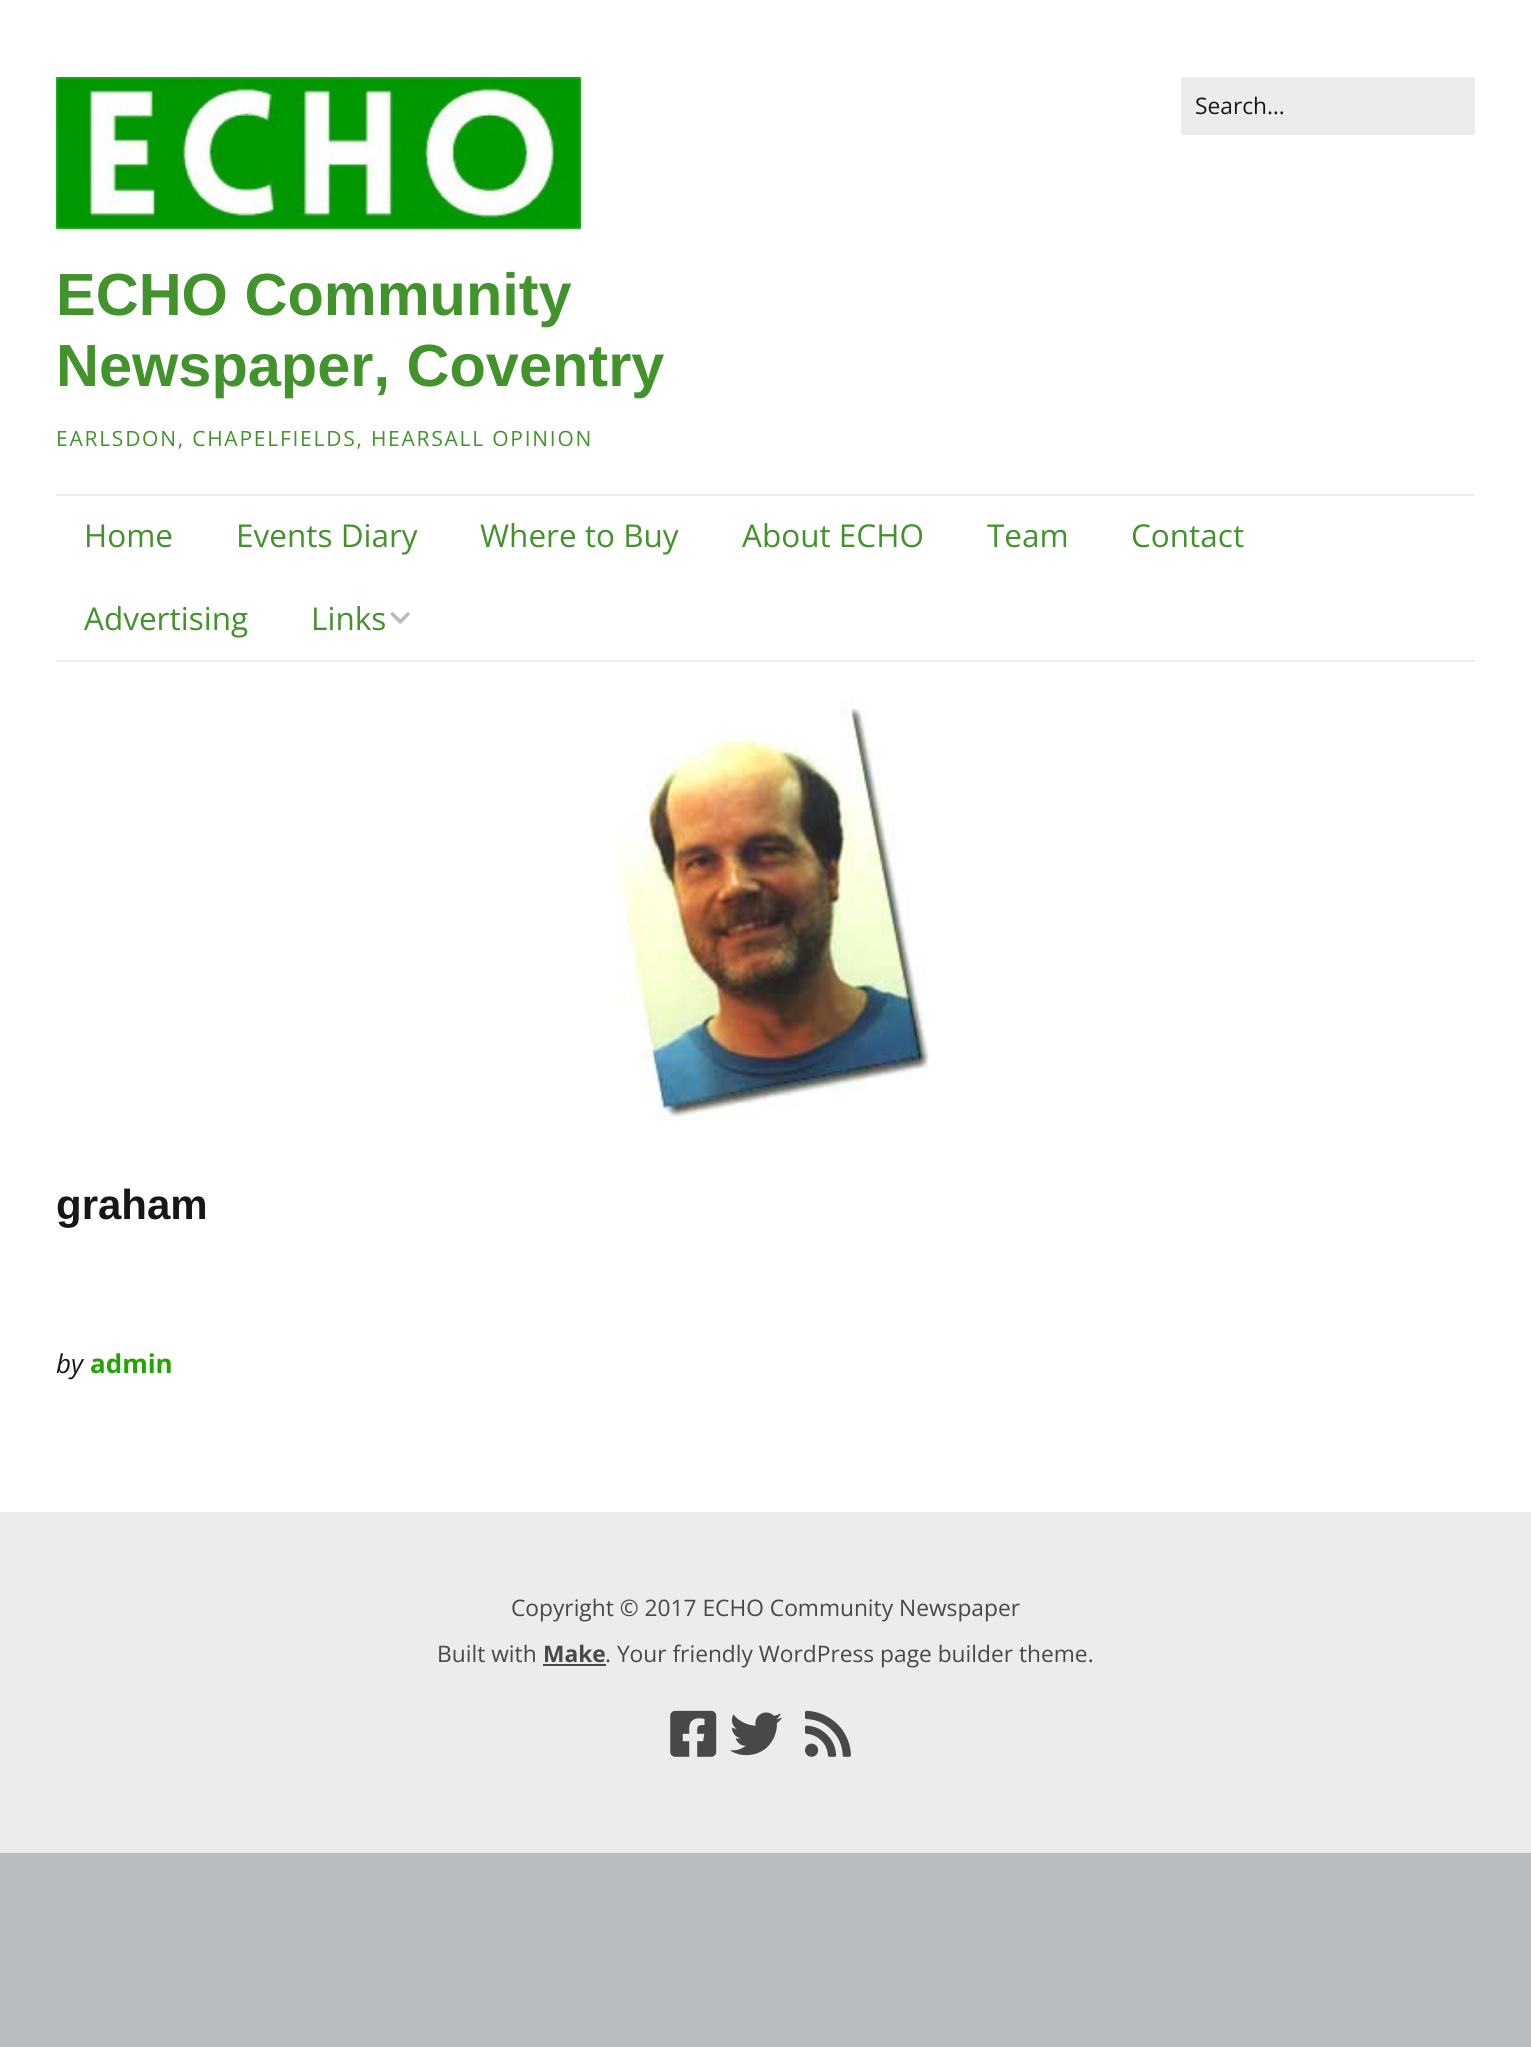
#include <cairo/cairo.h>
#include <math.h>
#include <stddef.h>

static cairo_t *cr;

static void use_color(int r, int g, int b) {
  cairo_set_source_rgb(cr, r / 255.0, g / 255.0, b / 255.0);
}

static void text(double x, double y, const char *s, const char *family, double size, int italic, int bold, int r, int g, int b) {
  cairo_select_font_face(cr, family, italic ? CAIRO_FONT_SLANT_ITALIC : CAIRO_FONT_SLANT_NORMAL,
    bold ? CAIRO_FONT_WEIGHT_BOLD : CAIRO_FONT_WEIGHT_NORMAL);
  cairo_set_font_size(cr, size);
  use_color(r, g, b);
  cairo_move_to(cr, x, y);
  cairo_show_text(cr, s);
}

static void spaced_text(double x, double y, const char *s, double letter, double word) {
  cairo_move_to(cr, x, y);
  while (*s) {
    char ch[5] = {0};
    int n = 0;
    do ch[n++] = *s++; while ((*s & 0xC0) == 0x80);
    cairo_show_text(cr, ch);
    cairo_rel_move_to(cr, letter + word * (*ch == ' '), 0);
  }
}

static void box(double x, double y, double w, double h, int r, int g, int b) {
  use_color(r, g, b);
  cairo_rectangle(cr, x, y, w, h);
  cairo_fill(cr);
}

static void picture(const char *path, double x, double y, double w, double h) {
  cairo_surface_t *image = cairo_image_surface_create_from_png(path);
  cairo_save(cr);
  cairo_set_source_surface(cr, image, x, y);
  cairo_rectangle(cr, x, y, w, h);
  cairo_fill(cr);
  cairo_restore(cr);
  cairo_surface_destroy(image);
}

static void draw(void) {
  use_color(185, 188, 191);
  cairo_paint(cr);
  box(0, 0, 1531, 1512, 255, 255, 255);
  box(1181, 77, 294, 58, 234, 236, 238);
  picture("img_01.png", 56, 77, 525, 153);
  box(56, 494, 1419, 2, 234, 236, 238);
  box(56, 660, 1419, 2, 234, 236, 238);
  picture("img_02.png", 390, 612, 20, 12);
  picture("img_03.png", 616, 700, 314, 420);
  box(0, 1512, 1531, 341, 234, 236, 238);
  box(543, 1664, 63, 2, 70, 72, 73);
  picture("img_04.png", 670, 1710, 47, 47);
  picture("img_05.png", 730, 1712, 53, 44);
  picture("img_06.png", 805, 1710, 46, 47);
  text(1195, 114, "Search…", "Open Sans", 22.75, 0, 0, 23, 23, 23);
  text(56, 315, "ECHO Community", "Liberation Sans", 59.5, 0, 1, 67, 147, 45);
  text(56, 386, "Newspaper, Coventry", "Liberation Sans", 59.5, 0, 1, 67, 147, 45);
  cairo_select_font_face(cr, "Open Sans", CAIRO_FONT_SLANT_NORMAL, CAIRO_FONT_WEIGHT_NORMAL);
  cairo_set_font_size(cr, 21);
  spaced_text(56, 446, "EARLSDON, CHAPELFIELDS, HEARSALL OPINION", 1.75, 0);
  text(84, 547, "Home", "Open Sans", 31.5, 0, 0, 67, 147, 45);
  text(236, 547, "Events Diary", "Open Sans", 31.5, 0, 0, 67, 147, 45);
  text(480, 547, "Where to Buy", "Open Sans", 31.5, 0, 0, 67, 147, 45);
  text(742, 547, "About ECHO", "Open Sans", 31.5, 0, 0, 67, 147, 45);
  text(987, 547, "Team", "Open Sans", 31.5, 0, 0, 67, 147, 45);
  text(1131, 547, "Contact", "Open Sans", 31.5, 0, 0, 67, 147, 45);
  text(84, 630, "Advertising", "Open Sans", 31.5, 0, 0, 67, 147, 45);
  text(311, 630, "Links", "Open Sans", 31.5, 0, 0, 67, 147, 45);
  text(56, 1219, "graham", "Liberation Sans", 42, 0, 1, 23, 23, 23);
  text(56, 1373, "by", "Open Sans", 26, 1, 0, 23, 23, 23);
  text(90, 1373, "admin", "Open Sans", 26, 0, 1, 35, 165, 0);
  text(511, 1616, "Copyright © 2017 ECHO Community Newspaper", "Open Sans", 22.75, 0, 0, 70, 72, 73);
  text(437, 1662, "Built with", "Open Sans", 22.75, 0, 0, 70, 72, 73);
  text(543, 1662, "Make", "Open Sans", 22.75, 0, 1, 70, 72, 73);
  text(605, 1662, ". Your friendly WordPress page builder theme.", "Open Sans", 22.75, 0, 0, 70, 72, 73);
}

int main(void) {
  cairo_surface_t *surface = cairo_image_surface_create(CAIRO_FORMAT_RGB24, 1531, 2047);
  cr = cairo_create(surface);
  cairo_font_options_t *options = cairo_font_options_create();
  cairo_font_options_set_hint_metrics(options, CAIRO_HINT_METRICS_OFF);
  cairo_font_options_set_hint_style(options, CAIRO_HINT_STYLE_NONE);
  cairo_set_font_options(cr, options);
  cairo_set_miter_limit(cr, 4);
  draw();
  cairo_surface_write_to_png(surface, "out.png");
  cairo_font_options_destroy(options);
  cairo_destroy(cr);
  cairo_surface_destroy(surface);
  return 0;
}
